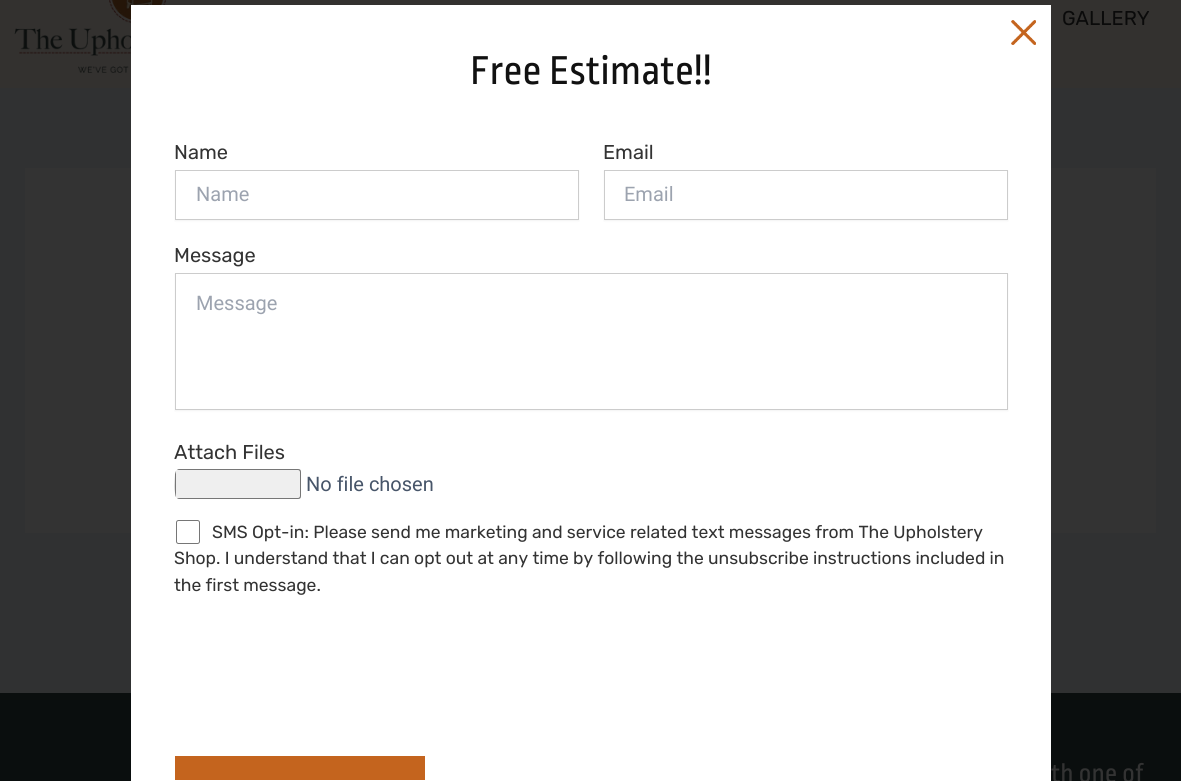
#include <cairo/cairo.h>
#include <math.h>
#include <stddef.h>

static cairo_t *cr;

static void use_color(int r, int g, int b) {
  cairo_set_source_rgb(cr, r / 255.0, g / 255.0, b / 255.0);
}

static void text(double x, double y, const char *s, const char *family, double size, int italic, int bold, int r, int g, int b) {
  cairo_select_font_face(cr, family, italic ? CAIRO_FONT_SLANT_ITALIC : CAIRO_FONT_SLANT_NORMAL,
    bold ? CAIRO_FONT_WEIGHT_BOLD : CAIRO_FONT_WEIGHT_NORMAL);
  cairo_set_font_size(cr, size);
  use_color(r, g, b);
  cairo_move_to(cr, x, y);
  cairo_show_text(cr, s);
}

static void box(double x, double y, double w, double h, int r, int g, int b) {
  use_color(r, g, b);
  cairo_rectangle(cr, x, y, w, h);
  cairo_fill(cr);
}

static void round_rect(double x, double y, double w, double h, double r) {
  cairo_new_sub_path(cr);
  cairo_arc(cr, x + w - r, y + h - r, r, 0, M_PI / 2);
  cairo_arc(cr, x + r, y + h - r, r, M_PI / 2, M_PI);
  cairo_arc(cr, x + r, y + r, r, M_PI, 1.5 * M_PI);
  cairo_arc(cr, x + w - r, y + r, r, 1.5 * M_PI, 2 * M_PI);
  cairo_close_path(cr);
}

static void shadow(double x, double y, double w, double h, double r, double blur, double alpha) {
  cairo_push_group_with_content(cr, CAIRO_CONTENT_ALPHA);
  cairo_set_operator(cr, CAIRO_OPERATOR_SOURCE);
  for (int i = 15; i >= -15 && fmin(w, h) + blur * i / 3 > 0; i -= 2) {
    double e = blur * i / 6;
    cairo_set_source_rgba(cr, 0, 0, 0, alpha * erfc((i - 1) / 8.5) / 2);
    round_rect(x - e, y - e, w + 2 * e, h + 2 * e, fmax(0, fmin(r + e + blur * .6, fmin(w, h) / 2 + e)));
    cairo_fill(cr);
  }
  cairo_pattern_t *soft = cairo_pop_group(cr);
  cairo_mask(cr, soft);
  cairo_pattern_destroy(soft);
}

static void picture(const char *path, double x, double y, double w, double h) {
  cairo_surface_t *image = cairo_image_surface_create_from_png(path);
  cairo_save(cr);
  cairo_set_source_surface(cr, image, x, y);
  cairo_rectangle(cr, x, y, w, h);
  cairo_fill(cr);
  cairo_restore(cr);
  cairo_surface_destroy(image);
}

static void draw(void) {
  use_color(48, 49, 50);
  cairo_paint(cr);
  box(0, 0, 1181, 88, 51, 49, 47);
  picture("img_02.png", 14, 0, 152, 73);
  box(25, 168, 1131, 365, 51, 51, 51);
  box(0, 693, 1181, 88, 10, 14, 14);
  box(131, 5, 920, 776, 255, 255, 255);
  picture("img_01.png", 1011, 20, 25, 25);
  use_color(0, 0, 0);
  shadow(175, 171, 404, 50, 0, 1, 0.05);
  use_color(255, 255, 255);
  cairo_rectangle(cr, 175.5, 170.5, 403, 49);
  cairo_fill_preserve(cr);
  use_color(204, 204, 204);
  cairo_set_line_width(cr, 1);
  cairo_stroke(cr);
  use_color(0, 0, 0);
  shadow(604, 171, 404, 50, 0, 1, 0.05);
  use_color(255, 255, 255);
  cairo_rectangle(cr, 604.5, 170.5, 403, 49);
  cairo_fill_preserve(cr);
  use_color(204, 204, 204);
  cairo_stroke(cr);
  use_color(0, 0, 0);
  shadow(175, 274, 833, 137, 0, 1, 0.05);
  use_color(255, 255, 255);
  cairo_rectangle(cr, 175.5, 273.5, 832, 136);
  cairo_fill_preserve(cr);
  use_color(204, 204, 204);
  cairo_stroke(cr);
  use_color(239, 239, 239);
  cairo_new_path(cr);
  cairo_move_to(cr, 180, 469);
  cairo_line_to(cr, 298.5, 469);
  cairo_curve_to(cr, 300, 469, 301, 470, 301, 471.5);
  cairo_line_to(cr, 301, 496.5);
  cairo_curve_to(cr, 301, 498, 300, 499, 298.5, 499);
  cairo_line_to(cr, 180, 499);
  cairo_curve_to(cr, 177, 499, 175, 497, 175, 494);
  cairo_line_to(cr, 175, 474);
  cairo_curve_to(cr, 175, 471, 177, 469, 180, 469);
  cairo_close_path(cr);
  cairo_fill(cr);
  use_color(118, 118, 118);
  cairo_set_fill_rule(cr, CAIRO_FILL_RULE_EVEN_ODD);
  cairo_new_path(cr);
  cairo_move_to(cr, 175, 474);
  cairo_curve_to(cr, 175, 478, 174, 494, 176, 497);
  cairo_line_to(cr, 176, 471);
  cairo_close_path(cr);
  cairo_move_to(cr, 178, 470);
  cairo_line_to(cr, 298, 470);
  cairo_curve_to(cr, 299, 470, 300, 471, 300, 472);
  cairo_line_to(cr, 300, 496);
  cairo_curve_to(cr, 300, 497, 299, 498, 298, 498);
  cairo_line_to(cr, 177, 498);
  cairo_curve_to(cr, 178, 499, 179, 499, 180, 499);
  cairo_line_to(cr, 298, 499);
  cairo_curve_to(cr, 300, 499, 301, 498, 301, 496);
  cairo_line_to(cr, 301, 472);
  cairo_curve_to(cr, 301, 470, 300, 469, 298, 469);
  cairo_line_to(cr, 180, 469);
  cairo_curve_to(cr, 179, 469, 178, 469, 177, 470);
  cairo_close_path(cr);
  cairo_fill(cr);
  round_rect(176.5, 520.5, 23, 23, 2);
  cairo_stroke(cr);
  box(175, 756, 250, 24, 196, 100, 30);
  text(470, 84, "Free Estimate!!", "Ropa Sans", 42.5, 0, 0, 17, 17, 17);
  text(174, 159, "Name", "Rubik", 20, 0, 0, 51, 51, 51);
  text(196, 201, "Name", "Roboto", 20, 0, 0, 156, 163, 175);
  text(603, 159, "Email", "Rubik", 20, 0, 0, 51, 51, 51);
  text(624, 201, "Email", "Roboto", 20, 0, 0, 156, 163, 175);
  text(174, 262, "Message", "Rubik", 20, 0, 0, 51, 51, 51);
  text(196, 310, "Message", "Roboto", 20, 0, 0, 156, 163, 175);
  text(174, 459, "Attach Files", "Rubik", 20, 0, 0, 51, 51, 51);
  text(306, 491, "No file chosen", "Roboto", 20, 0, 0, 71, 85, 105);
  text(212, 538, "SMS Opt-in: Please send me marketing and service related text messages from The Upholstery", "Rubik", 17.5, 0, 0, 51, 51, 51);
  text(174, 564, "Shop. I understand that I can opt out at any time by following the unsubscribe instructions included in", "Rubik", 17.5, 0, 0, 51, 51, 51);
  text(174, 591, "the first message.", "Rubik", 17.5, 0, 0, 51, 51, 51);
  text(1062, 25, "GALLERY", "Rubik", 20, 0, 0, 10, 10, 10);
  text(1051, 782, "th one of", "Ropa Sans", 27.5, 0, 0, 51, 51, 51);
}

int main(void) {
  cairo_surface_t *surface = cairo_image_surface_create(CAIRO_FORMAT_RGB24, 1181, 781);
  cr = cairo_create(surface);
  cairo_font_options_t *options = cairo_font_options_create();
  cairo_font_options_set_hint_metrics(options, CAIRO_HINT_METRICS_OFF);
  cairo_font_options_set_hint_style(options, CAIRO_HINT_STYLE_NONE);
  cairo_set_font_options(cr, options);
  cairo_set_miter_limit(cr, 4);
  draw();
  cairo_surface_write_to_png(surface, "out.png");
  cairo_font_options_destroy(options);
  cairo_destroy(cr);
  cairo_surface_destroy(surface);
  return 0;
}
